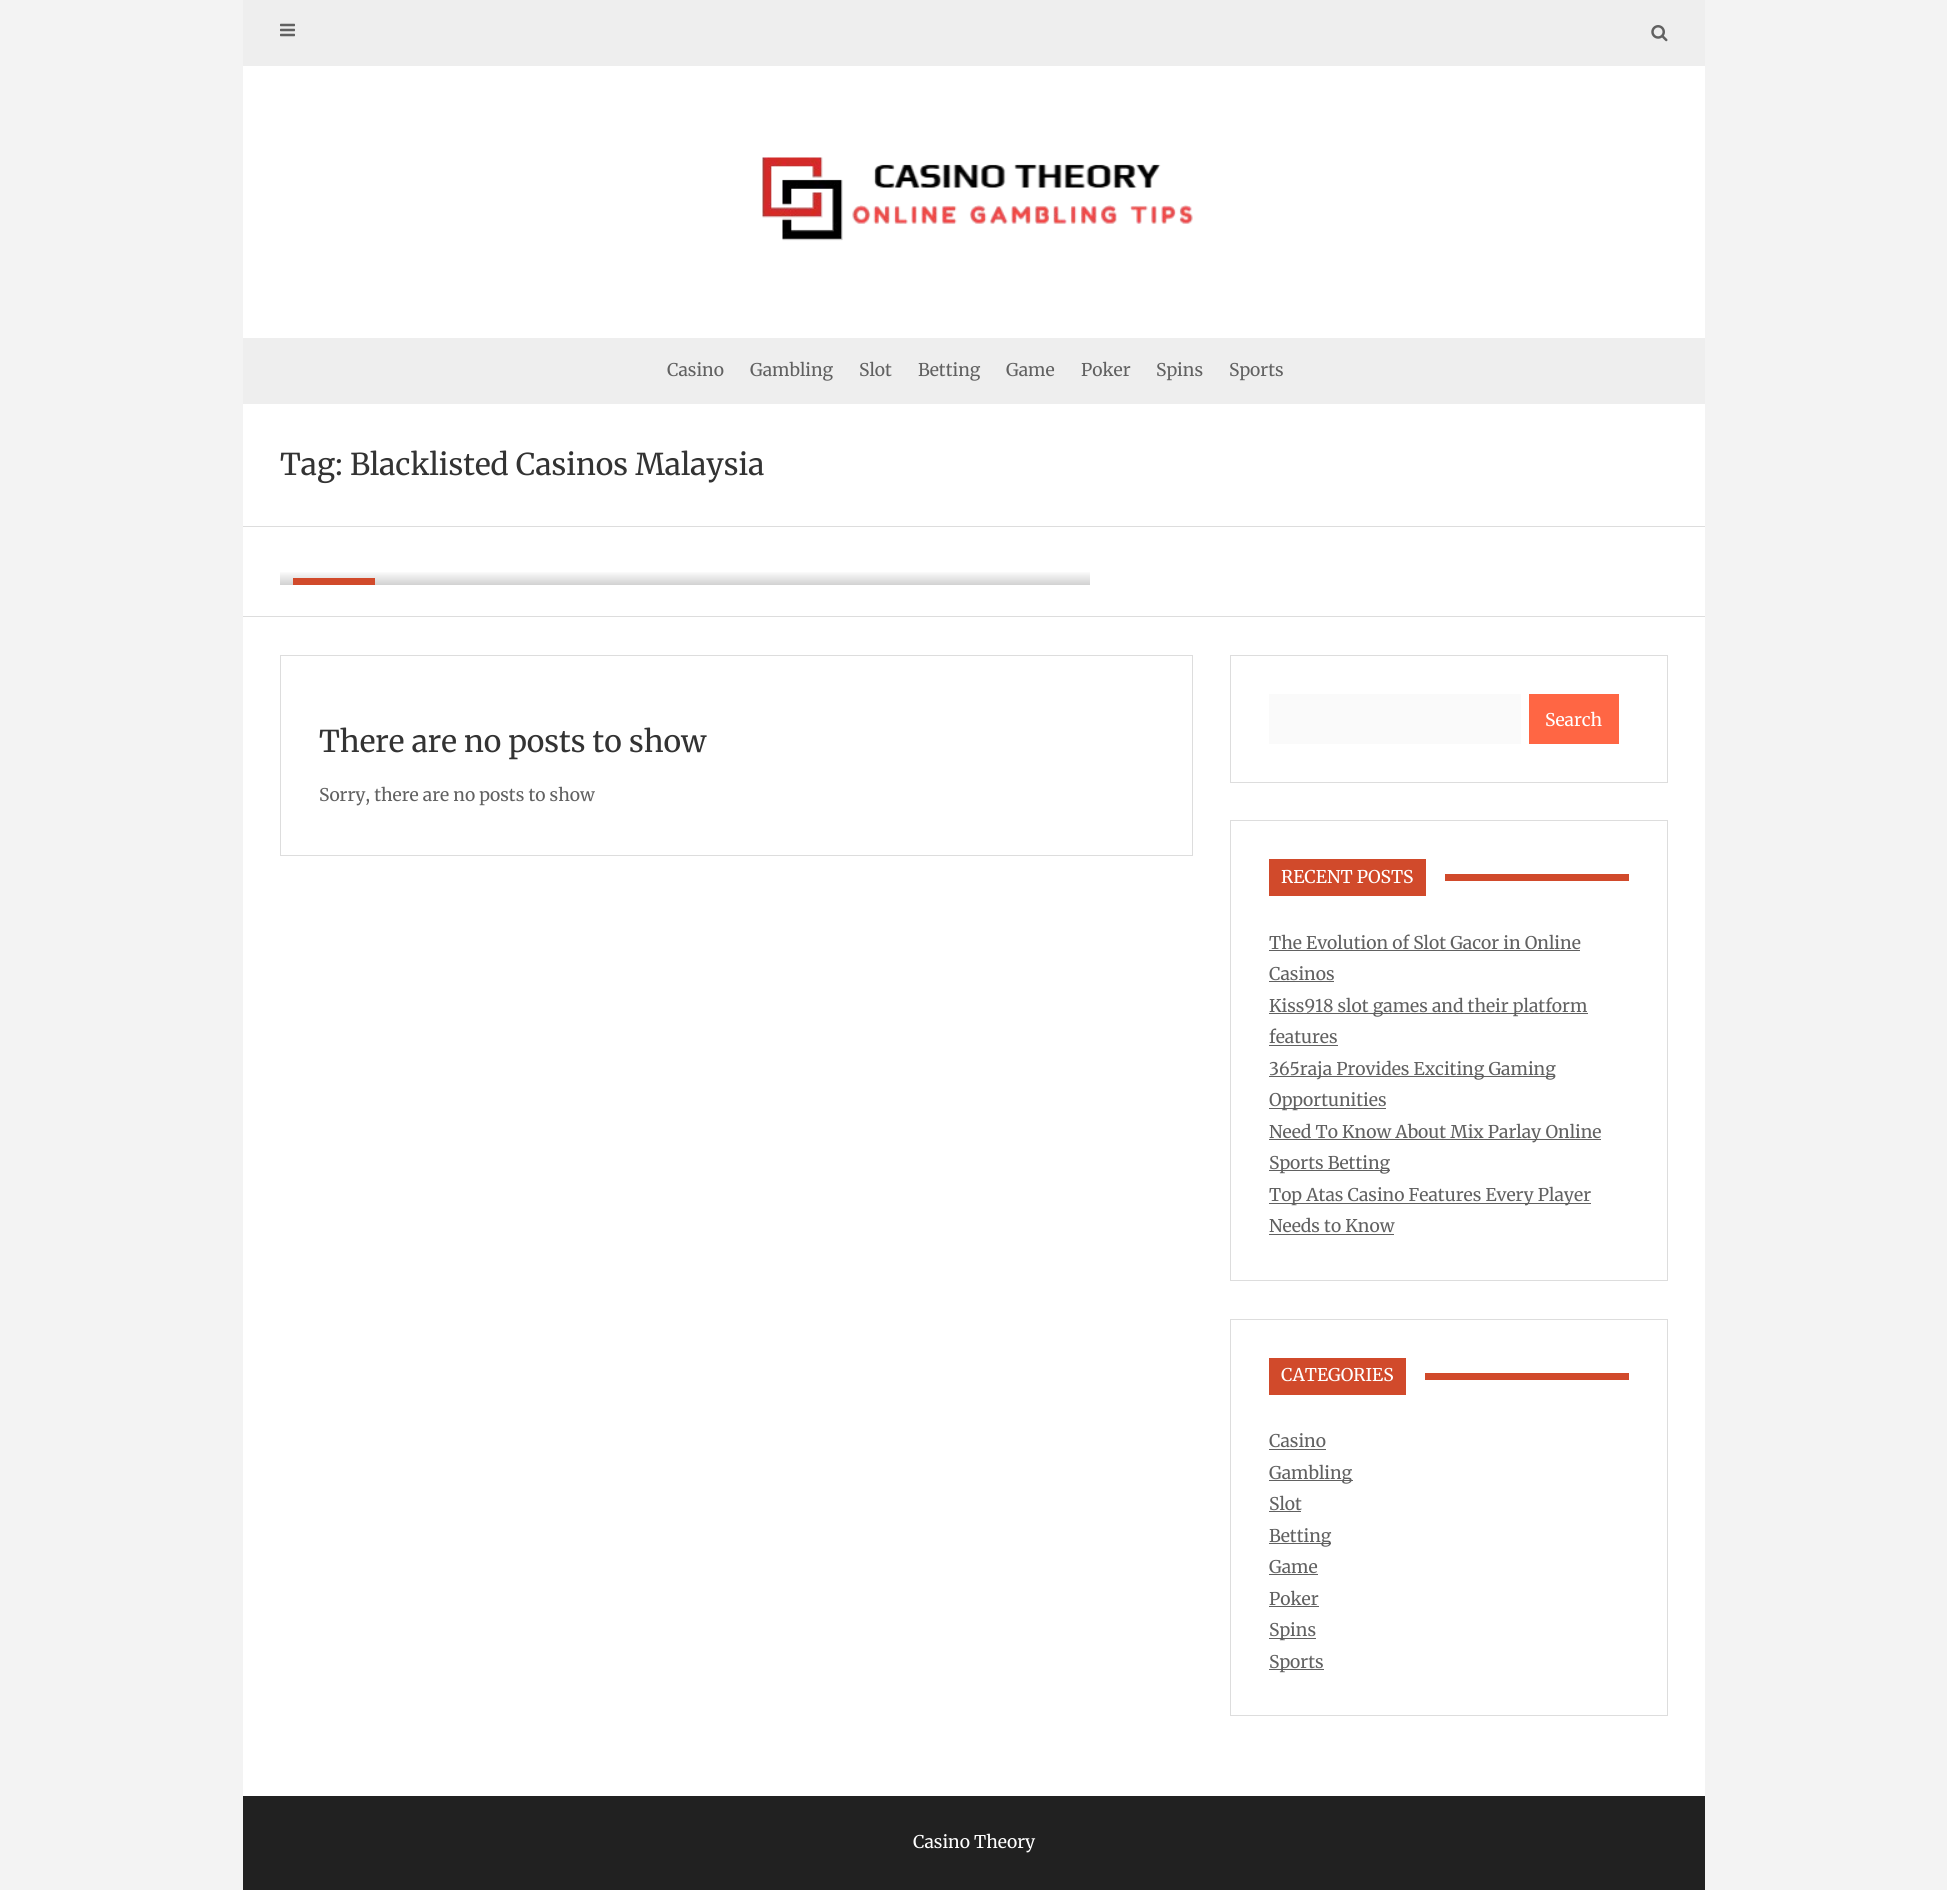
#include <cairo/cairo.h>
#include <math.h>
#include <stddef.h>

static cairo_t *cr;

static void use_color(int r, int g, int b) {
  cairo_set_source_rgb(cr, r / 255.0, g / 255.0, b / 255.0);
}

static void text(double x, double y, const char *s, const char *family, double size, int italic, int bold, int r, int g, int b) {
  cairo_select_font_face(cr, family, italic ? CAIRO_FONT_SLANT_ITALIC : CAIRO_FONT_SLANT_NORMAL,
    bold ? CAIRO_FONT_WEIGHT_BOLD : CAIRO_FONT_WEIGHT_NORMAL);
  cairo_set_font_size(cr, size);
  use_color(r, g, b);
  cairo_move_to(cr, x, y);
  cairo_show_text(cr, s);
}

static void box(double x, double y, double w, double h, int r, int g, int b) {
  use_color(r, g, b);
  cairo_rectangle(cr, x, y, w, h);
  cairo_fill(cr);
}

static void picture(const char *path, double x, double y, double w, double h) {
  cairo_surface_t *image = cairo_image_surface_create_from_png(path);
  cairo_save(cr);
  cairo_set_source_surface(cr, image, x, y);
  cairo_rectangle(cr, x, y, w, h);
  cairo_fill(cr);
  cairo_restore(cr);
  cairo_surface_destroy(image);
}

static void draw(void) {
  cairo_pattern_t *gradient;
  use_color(243, 243, 243);
  cairo_paint(cr);
  box(243, 66, 1462, 1730, 255, 255, 255);
  box(243, 0, 1462, 66, 238, 238, 238);
  picture("img_01.png", 280, 23, 15, 14);
  picture("img_02.png", 1651, 25, 17, 17);
  picture("img_03.png", 762, 157, 431, 84);
  box(243, 338, 1462, 66, 238, 238, 238);
  box(243, 526, 1462, 1, 221, 221, 221);
  box(243, 616, 1462, 1, 221, 221, 221);
  gradient = cairo_pattern_create_linear(685, 565, 685, 585);
  cairo_pattern_add_color_stop_rgba(gradient, 0, 1, 1, 1, 1);
  cairo_pattern_add_color_stop_rgba(gradient, 0.3, 1, 1, 1, 1);
  cairo_pattern_add_color_stop_rgba(gradient, 0.5, 0.945, 0.945, 0.945, 1);
  cairo_pattern_add_color_stop_rgba(gradient, 1, 0.82, 0.82, 0.82, 1);
  cairo_set_source(cr, gradient);
  cairo_pattern_destroy(gradient);
  cairo_rectangle(cr, 280, 572, 810, 13);
  cairo_fill(cr);
  box(293, 578, 82, 7, 209, 74, 43);
  cairo_rectangle(cr, 280.5, 655.5, 912, 200);
  use_color(221, 221, 221);
  cairo_set_line_width(cr, 1);
  cairo_stroke(cr);
  cairo_rectangle(cr, 1230.5, 655.5, 437, 127);
  cairo_stroke(cr);
  box(1269, 694, 252, 50, 250, 250, 250);
  box(1529, 694, 90, 50, 255, 102, 68);
  cairo_rectangle(cr, 1230.5, 820.5, 437, 460);
  use_color(221, 221, 221);
  cairo_stroke(cr);
  box(1269, 859, 157, 37, 209, 74, 43);
  box(1445, 874, 184, 7, 209, 74, 43);
  box(1269, 950, 311, 1, 97, 97, 97);
  box(1269, 981, 65, 1, 97, 97, 97);
  box(1269, 1013, 319, 1, 97, 97, 97);
  box(1269, 1045, 69, 1, 97, 97, 97);
  box(1269, 1076, 286, 1, 97, 97, 97);
  box(1269, 1108, 117, 1, 97, 97, 97);
  box(1269, 1139, 332, 1, 97, 97, 97);
  box(1269, 1170, 121, 1, 97, 97, 97);
  box(1269, 1203, 322, 1, 97, 97, 97);
  box(1269, 1234, 125, 1, 97, 97, 97);
  cairo_rectangle(cr, 1230.5, 1319.5, 437, 396);
  use_color(221, 221, 221);
  cairo_stroke(cr);
  box(1269, 1358, 137, 37, 209, 74, 43);
  box(1425, 1373, 204, 7, 209, 74, 43);
  box(1269, 1449, 57, 1, 97, 97, 97);
  box(1269, 1480, 84, 1, 97, 97, 97);
  box(1269, 1511, 32, 1, 97, 97, 97);
  box(1269, 1543, 62, 1, 97, 97, 97);
  box(1269, 1574, 49, 1, 97, 97, 97);
  box(1269, 1606, 50, 1, 97, 97, 97);
  box(1269, 1638, 47, 1, 97, 97, 97);
  box(1269, 1669, 55, 1, 97, 97, 97);
  box(243, 1796, 1462, 94, 33, 33, 33);
  text(667, 376, "Casino", "Merriweather", 17.5, 0, 0, 97, 97, 97);
  text(750, 376, "Gambling", "Merriweather", 17.5, 0, 0, 97, 97, 97);
  text(859, 376, "Slot", "Merriweather", 17.5, 0, 0, 97, 97, 97);
  text(918, 376, "Betting", "Merriweather", 17.5, 0, 0, 97, 97, 97);
  text(1006, 376, "Game", "Merriweather", 17.5, 0, 0, 97, 97, 97);
  text(1081, 376, "Poker", "Merriweather", 17.5, 0, 0, 97, 97, 97);
  text(1156, 376, "Spins", "Merriweather", 17.5, 0, 0, 97, 97, 97);
  text(1229, 376, "Sports", "Merriweather", 17.5, 0, 0, 97, 97, 97);
  text(280, 475, "Tag: Blacklisted Casinos Malaysia", "Merriweather", 30, 0, 0, 51, 51, 51);
  text(319, 752, "There are no posts to show", "Merriweather", 30, 0, 0, 51, 51, 51);
  text(319, 801, "Sorry, there are no posts to show", "Merriweather", 17.5, 0, 0, 97, 97, 97);
  text(1545, 726, "Search", "Merriweather", 17.5, 0, 0, 255, 255, 255);
  text(1281, 883, "RECENT POSTS", "Merriweather", 17.5, 0, 0, 255, 255, 255);
  text(1269, 949, "The Evolution of Slot Gacor in Online", "Merriweather", 17.5, 0, 0, 97, 97, 97);
  text(1269, 980, "Casinos", "Merriweather", 17.5, 0, 0, 97, 97, 97);
  text(1269, 1012, "Kiss918 slot games and their platform", "Merriweather", 17.5, 0, 0, 97, 97, 97);
  text(1269, 1043, "features", "Merriweather", 17.5, 0, 0, 97, 97, 97);
  text(1269, 1075, "365raja Provides Exciting Gaming", "Merriweather", 17.5, 0, 0, 97, 97, 97);
  text(1269, 1106, "Opportunities", "Merriweather", 17.5, 0, 0, 97, 97, 97);
  text(1269, 1138, "Need To Know About Mix Parlay Online", "Merriweather", 17.5, 0, 0, 97, 97, 97);
  text(1269, 1169, "Sports Betting", "Merriweather", 17.5, 0, 0, 97, 97, 97);
  text(1269, 1201, "Top Atas Casino Features Every Player", "Merriweather", 17.5, 0, 0, 97, 97, 97);
  text(1269, 1232, "Needs to Know", "Merriweather", 17.5, 0, 0, 97, 97, 97);
  text(1281, 1381, "CATEGORIES", "Merriweather", 17.5, 0, 0, 255, 255, 255);
  text(1269, 1447, "Casino", "Merriweather", 17.5, 0, 0, 97, 97, 97);
  text(1269, 1479, "Gambling", "Merriweather", 17.5, 0, 0, 97, 97, 97);
  text(1269, 1510, "Slot", "Merriweather", 17.5, 0, 0, 97, 97, 97);
  text(1269, 1542, "Betting", "Merriweather", 17.5, 0, 0, 97, 97, 97);
  text(1269, 1573, "Game", "Merriweather", 17.5, 0, 0, 97, 97, 97);
  text(1269, 1605, "Poker", "Merriweather", 17.5, 0, 0, 97, 97, 97);
  text(1269, 1636, "Spins", "Merriweather", 17.5, 0, 0, 97, 97, 97);
  text(1269, 1668, "Sports", "Merriweather", 17.5, 0, 0, 97, 97, 97);
  text(913, 1848, "Casino Theory", "Merriweather", 17.5, 0, 0, 255, 255, 255);
}

int main(void) {
  cairo_surface_t *surface = cairo_image_surface_create(CAIRO_FORMAT_RGB24, 1947, 1890);
  cr = cairo_create(surface);
  cairo_font_options_t *options = cairo_font_options_create();
  cairo_font_options_set_hint_metrics(options, CAIRO_HINT_METRICS_OFF);
  cairo_font_options_set_hint_style(options, CAIRO_HINT_STYLE_NONE);
  cairo_set_font_options(cr, options);
  cairo_set_miter_limit(cr, 4);
  draw();
  cairo_surface_write_to_png(surface, "out.png");
  cairo_font_options_destroy(options);
  cairo_destroy(cr);
  cairo_surface_destroy(surface);
  return 0;
}
